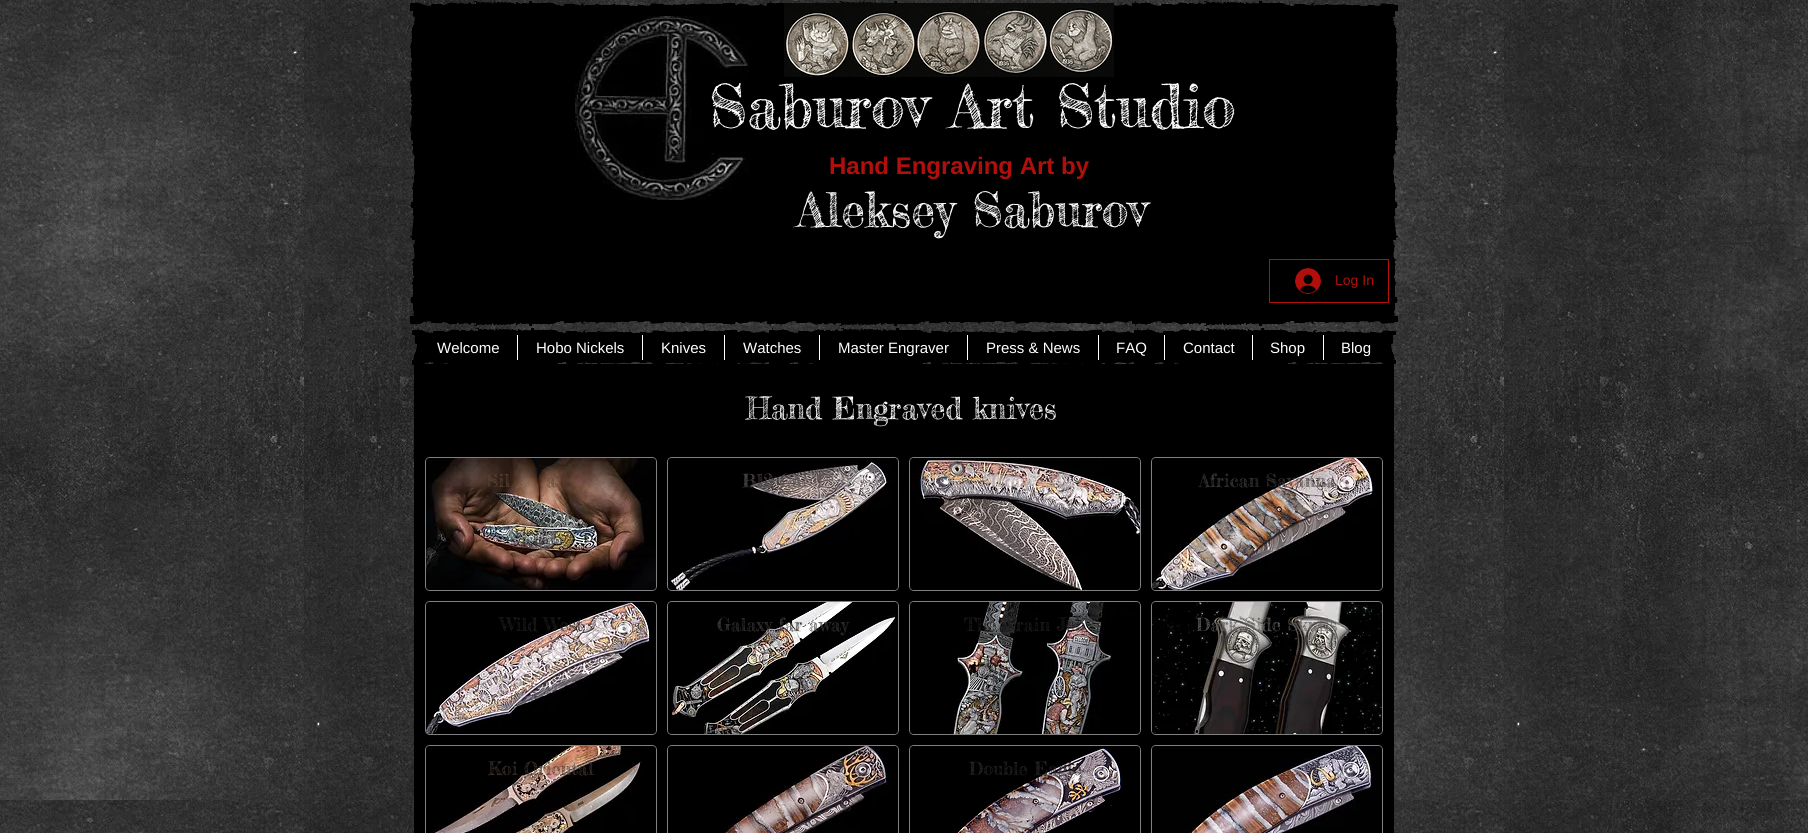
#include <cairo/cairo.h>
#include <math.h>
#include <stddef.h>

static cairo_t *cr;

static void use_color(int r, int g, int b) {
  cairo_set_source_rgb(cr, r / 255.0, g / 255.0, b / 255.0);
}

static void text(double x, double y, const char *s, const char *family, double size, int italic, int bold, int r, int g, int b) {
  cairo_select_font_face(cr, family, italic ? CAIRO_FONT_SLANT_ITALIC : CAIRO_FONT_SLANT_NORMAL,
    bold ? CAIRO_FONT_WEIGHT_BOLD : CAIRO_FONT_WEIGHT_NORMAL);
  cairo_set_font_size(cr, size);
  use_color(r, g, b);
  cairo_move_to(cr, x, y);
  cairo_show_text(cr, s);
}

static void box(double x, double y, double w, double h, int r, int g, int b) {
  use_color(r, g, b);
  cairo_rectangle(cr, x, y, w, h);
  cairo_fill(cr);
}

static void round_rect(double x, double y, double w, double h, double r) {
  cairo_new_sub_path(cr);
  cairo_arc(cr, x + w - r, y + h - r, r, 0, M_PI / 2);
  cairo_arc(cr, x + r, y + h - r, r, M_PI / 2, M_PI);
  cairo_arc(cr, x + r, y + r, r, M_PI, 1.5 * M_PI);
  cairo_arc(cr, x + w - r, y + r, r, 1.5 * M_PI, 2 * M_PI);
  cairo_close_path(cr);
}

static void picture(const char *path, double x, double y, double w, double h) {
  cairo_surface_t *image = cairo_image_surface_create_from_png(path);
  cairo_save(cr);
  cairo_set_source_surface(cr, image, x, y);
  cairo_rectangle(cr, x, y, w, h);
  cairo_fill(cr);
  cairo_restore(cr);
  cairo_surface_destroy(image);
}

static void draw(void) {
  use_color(255, 255, 255);
  cairo_paint(cr);
  picture("img_01.png", 0, 0, 1808, 833);
  box(417, 11, 974, 305, 0, 0, 0);
  picture("img_02.png", 410, 1, 988, 10);
  picture("img_03.png", 410, 316, 988, 10);
  picture("img_04.png", 410, 11, 7, 305);
  picture("img_05.png", 1391, 11, 7, 305);
  picture("img_06.png", 575, 16, 175, 184);
  picture("img_07.png", 784, 3, 330, 74);
  cairo_rectangle(cr, 1269.5, 259.5, 119, 43);
  use_color(178, 15, 12);
  cairo_set_line_width(cr, 1);
  cairo_stroke(cr);
  picture("img_08.png", 1295, 268, 26, 26);
  picture("img_09.png", 412, 328, 984, 7);
  picture("img_10.png", 413, 335, 6, 25);
  box(419, 335, 970, 25, 0, 0, 0);
  box(517, 335, 1, 25, 255, 255, 255);
  box(642, 335, 1, 25, 255, 255, 255);
  box(724, 335, 1, 25, 255, 255, 255);
  box(819, 335, 1, 25, 255, 255, 255);
  box(967, 335, 1, 25, 255, 255, 255);
  box(1098, 335, 1, 25, 255, 255, 255);
  box(1164, 335, 1, 25, 255, 255, 255);
  box(1252, 335, 1, 25, 255, 255, 255);
  box(1323, 335, 1, 25, 255, 255, 255);
  picture("img_11.png", 1389, 335, 6, 25);
  picture("img_12.png", 412, 360, 984, 5);
  box(414, 364, 980, 469, 0, 0, 0);
  round_rect(425.5, 457.5, 231, 133, 4.5);
  use_color(129, 129, 129);
  cairo_stroke(cr);
  picture("img_13.png", 426, 458, 230, 132);
  round_rect(667.5, 457.5, 231, 133, 4.5);
  cairo_stroke(cr);
  picture("img_14.png", 668, 458, 230, 132);
  round_rect(909.5, 457.5, 231, 133, 4.5);
  cairo_stroke(cr);
  picture("img_15.png", 910, 458, 230, 132);
  round_rect(1151.5, 457.5, 231, 133, 4.5);
  cairo_stroke(cr);
  picture("img_16.png", 1152, 458, 230, 132);
  round_rect(425.5, 601.5, 231, 133, 4.5);
  cairo_stroke(cr);
  picture("img_17.png", 426, 602, 230, 132);
  round_rect(667.5, 601.5, 231, 133, 4.5);
  cairo_stroke(cr);
  picture("img_18.png", 668, 602, 230, 132);
  round_rect(909.5, 601.5, 231, 133, 4.5);
  cairo_stroke(cr);
  picture("img_19.png", 910, 602, 230, 132);
  round_rect(1151.5, 601.5, 231, 133, 4.5);
  cairo_stroke(cr);
  picture("img_20.png", 1152, 602, 230, 132);
  round_rect(425.5, 745.5, 231, 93, 4.5);
  cairo_stroke(cr);
  picture("img_21.png", 426, 746, 230, 87);
  round_rect(667.5, 745.5, 231, 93, 4.5);
  cairo_stroke(cr);
  picture("img_22.png", 668, 746, 230, 87);
  round_rect(909.5, 745.5, 231, 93, 4.5);
  cairo_stroke(cr);
  picture("img_23.png", 910, 746, 230, 87);
  round_rect(1151.5, 745.5, 231, 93, 4.5);
  cairo_stroke(cr);
  picture("img_24.png", 1152, 746, 230, 87);
  text(709, 128, "Saburov Art Studio", "Fredericka the Great", 60, 0, 0, 255, 255, 255);
  text(829, 174, "Hand Engraving Art by", "Liberation Sans", 24, 0, 1, 178, 15, 12);
  text(797, 227, "Aleksey Saburov", "Fredericka the Great", 48, 0, 0, 255, 255, 255);
  text(1335, 285, "Log In", "Liberation Sans", 14, 0, 0, 178, 15, 12);
  text(437, 353, "Welcome", "Liberation Sans", 15, 0, 0, 255, 255, 255);
  text(536, 353, "Hobo Nickels", "Liberation Sans", 15, 0, 0, 255, 255, 255);
  text(661, 353, "Knives", "Liberation Sans", 15, 0, 0, 255, 255, 255);
  text(743, 353, "Watches", "Liberation Sans", 15, 0, 0, 255, 255, 255);
  text(838, 353, "Master Engraver", "Liberation Sans", 15, 0, 0, 255, 255, 255);
  text(986, 353, "Press & News", "Liberation Sans", 15, 0, 0, 255, 255, 255);
  text(1116, 353, "FAQ", "Liberation Sans", 15, 0, 0, 255, 255, 255);
  text(1183, 353, "Contact", "Liberation Sans", 15, 0, 0, 255, 255, 255);
  text(1270, 353, "Shop", "Liberation Sans", 15, 0, 0, 255, 255, 255);
  text(1341, 353, "Blog", "Liberation Sans", 15, 0, 0, 255, 255, 255);
  text(746, 419, "Hand Engraved knives", "Fredericka the Great", 30, 0, 0, 255, 255, 255);
  text(487, 487, "Sil", "Fredericka the Great", 18, 0, 0, 97, 68, 54);
  text(546, 487, "a", "Fredericka the Great", 18, 0, 0, 97, 68, 54);
  text(742, 487, "B12 Chief", "Fredericka the Great", 18, 0, 0, 85, 77, 77);
  text(980, 487, "Africa - III", "Fredericka the Great", 18, 0, 0, 184, 169, 166);
  text(1199, 487, "African Savanna", "Fredericka the Great", 18, 0, 0, 67, 62, 62);
  text(500, 631, "Wild West", "Fredericka the Great", 18, 0, 0, 36, 30, 30);
  text(717, 631, "Galaxy far away", "Fredericka the Great", 18, 0, 0, 56, 55, 54);
  text(964, 631, "The Train Job", "Fredericka the Great", 18, 0, 0, 36, 30, 30);
  text(1196, 631, "Dark Side Skulls", "Fredericka the Great", 18, 0, 0, 95, 93, 91);
  text(488, 775, "Koi Oriental", "Fredericka the Great", 18, 0, 0, 72, 58, 52);
  text(969, 775, "Double Eagle", "Fredericka the Great", 18, 0, 0, 42, 39, 41);
}

int main(void) {
  cairo_surface_t *surface = cairo_image_surface_create(CAIRO_FORMAT_RGB24, 1808, 833);
  cr = cairo_create(surface);
  cairo_font_options_t *options = cairo_font_options_create();
  cairo_font_options_set_hint_metrics(options, CAIRO_HINT_METRICS_OFF);
  cairo_font_options_set_hint_style(options, CAIRO_HINT_STYLE_NONE);
  cairo_set_font_options(cr, options);
  cairo_set_miter_limit(cr, 4);
  draw();
  cairo_surface_write_to_png(surface, "out.png");
  cairo_font_options_destroy(options);
  cairo_destroy(cr);
  cairo_surface_destroy(surface);
  return 0;
}
